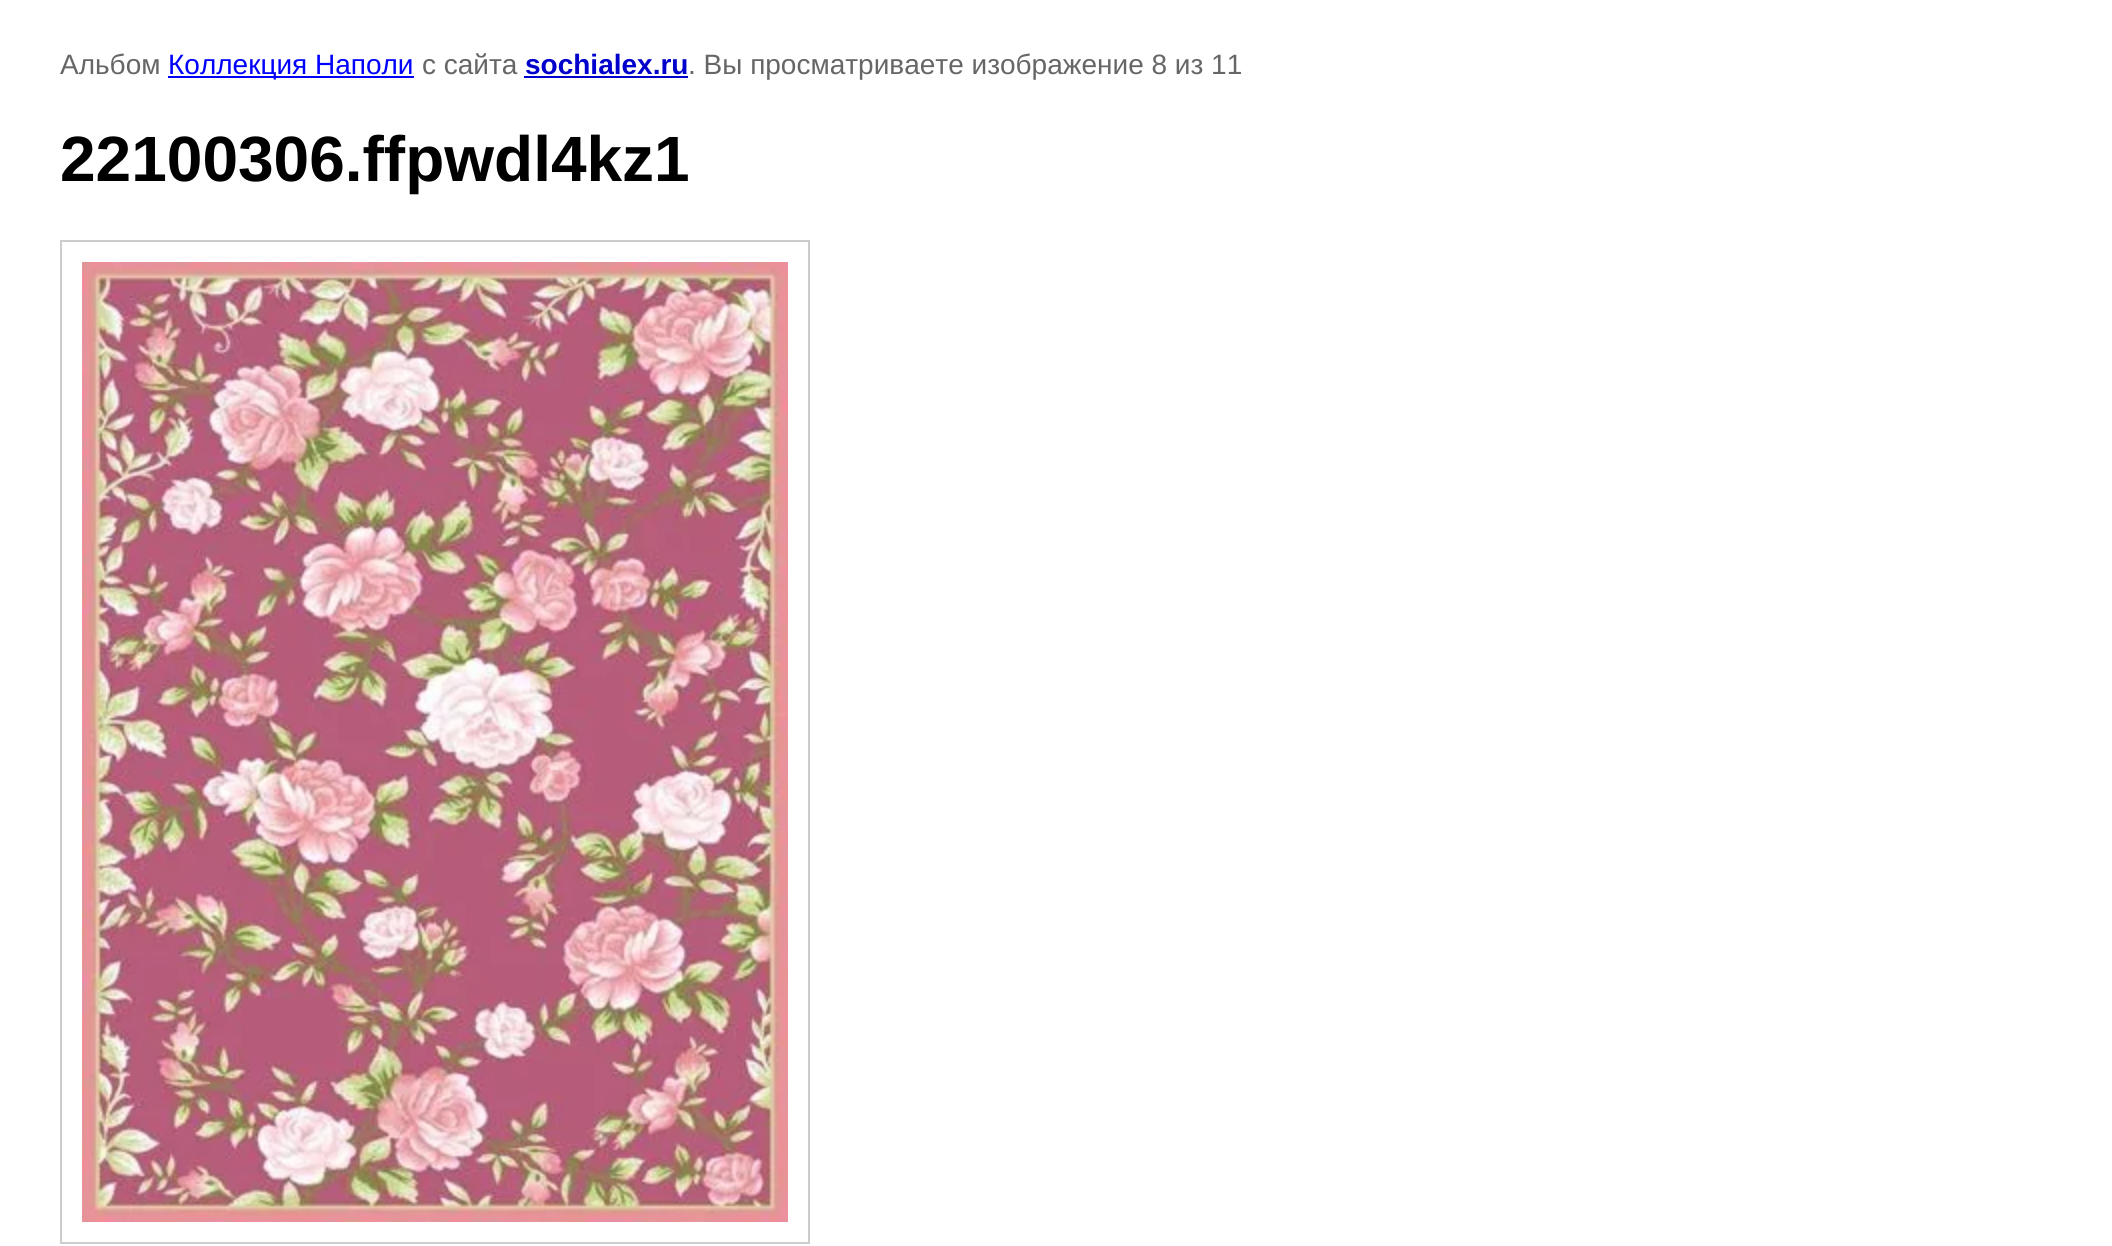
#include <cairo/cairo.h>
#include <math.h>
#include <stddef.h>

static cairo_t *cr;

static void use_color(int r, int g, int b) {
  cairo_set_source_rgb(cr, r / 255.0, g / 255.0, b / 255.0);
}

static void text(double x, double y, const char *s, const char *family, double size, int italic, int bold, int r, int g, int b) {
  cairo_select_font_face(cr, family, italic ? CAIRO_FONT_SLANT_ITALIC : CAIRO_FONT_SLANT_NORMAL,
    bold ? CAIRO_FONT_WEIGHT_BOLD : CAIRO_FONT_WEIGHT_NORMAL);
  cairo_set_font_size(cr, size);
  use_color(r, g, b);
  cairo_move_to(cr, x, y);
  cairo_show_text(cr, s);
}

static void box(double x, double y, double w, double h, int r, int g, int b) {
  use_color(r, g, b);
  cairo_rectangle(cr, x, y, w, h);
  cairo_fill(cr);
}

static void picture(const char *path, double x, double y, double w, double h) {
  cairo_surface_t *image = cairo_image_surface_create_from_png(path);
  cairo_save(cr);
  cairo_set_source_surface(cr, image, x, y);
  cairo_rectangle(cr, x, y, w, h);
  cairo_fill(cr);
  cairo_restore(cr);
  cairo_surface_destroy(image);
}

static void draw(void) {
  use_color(255, 255, 255);
  cairo_paint(cr);
  box(168, 76, 246, 2, 0, 0, 255);
  box(524, 76, 164, 2, 0, 0, 204);
  cairo_rectangle(cr, 61, 241, 748, 1002);
  use_color(204, 204, 204);
  cairo_stroke(cr);
  picture("img_01.png", 82, 262, 706, 960);
  text(60, 74, "Альбом", "Liberation Sans", 28, 0, 0, 102, 102, 102);
  text(168, 74, "Коллекция Наполи", "Liberation Sans", 28, 0, 0, 0, 0, 255);
  text(422, 74, "с сайта", "Liberation Sans", 28, 0, 0, 102, 102, 102);
  text(525, 74, "sochialex.ru", "Liberation Sans", 28, 0, 1, 0, 0, 204);
  text(688, 74, ". Вы просматриваете изображение 8 из 11", "Liberation Sans", 28, 0, 0, 102, 102, 102);
  text(60, 181, "22100306.ffpwdl4kz1", "Liberation Sans", 64, 0, 1, 0, 0, 0);
}

int main(void) {
  cairo_surface_t *surface = cairo_image_surface_create(CAIRO_FORMAT_RGB24, 2112, 1246);
  cr = cairo_create(surface);
  cairo_font_options_t *options = cairo_font_options_create();
  cairo_font_options_set_hint_metrics(options, CAIRO_HINT_METRICS_OFF);
  cairo_font_options_set_hint_style(options, CAIRO_HINT_STYLE_NONE);
  cairo_set_font_options(cr, options);
  cairo_set_miter_limit(cr, 4);
  draw();
  cairo_surface_write_to_png(surface, "out.png");
  cairo_font_options_destroy(options);
  cairo_destroy(cr);
  cairo_surface_destroy(surface);
  return 0;
}
